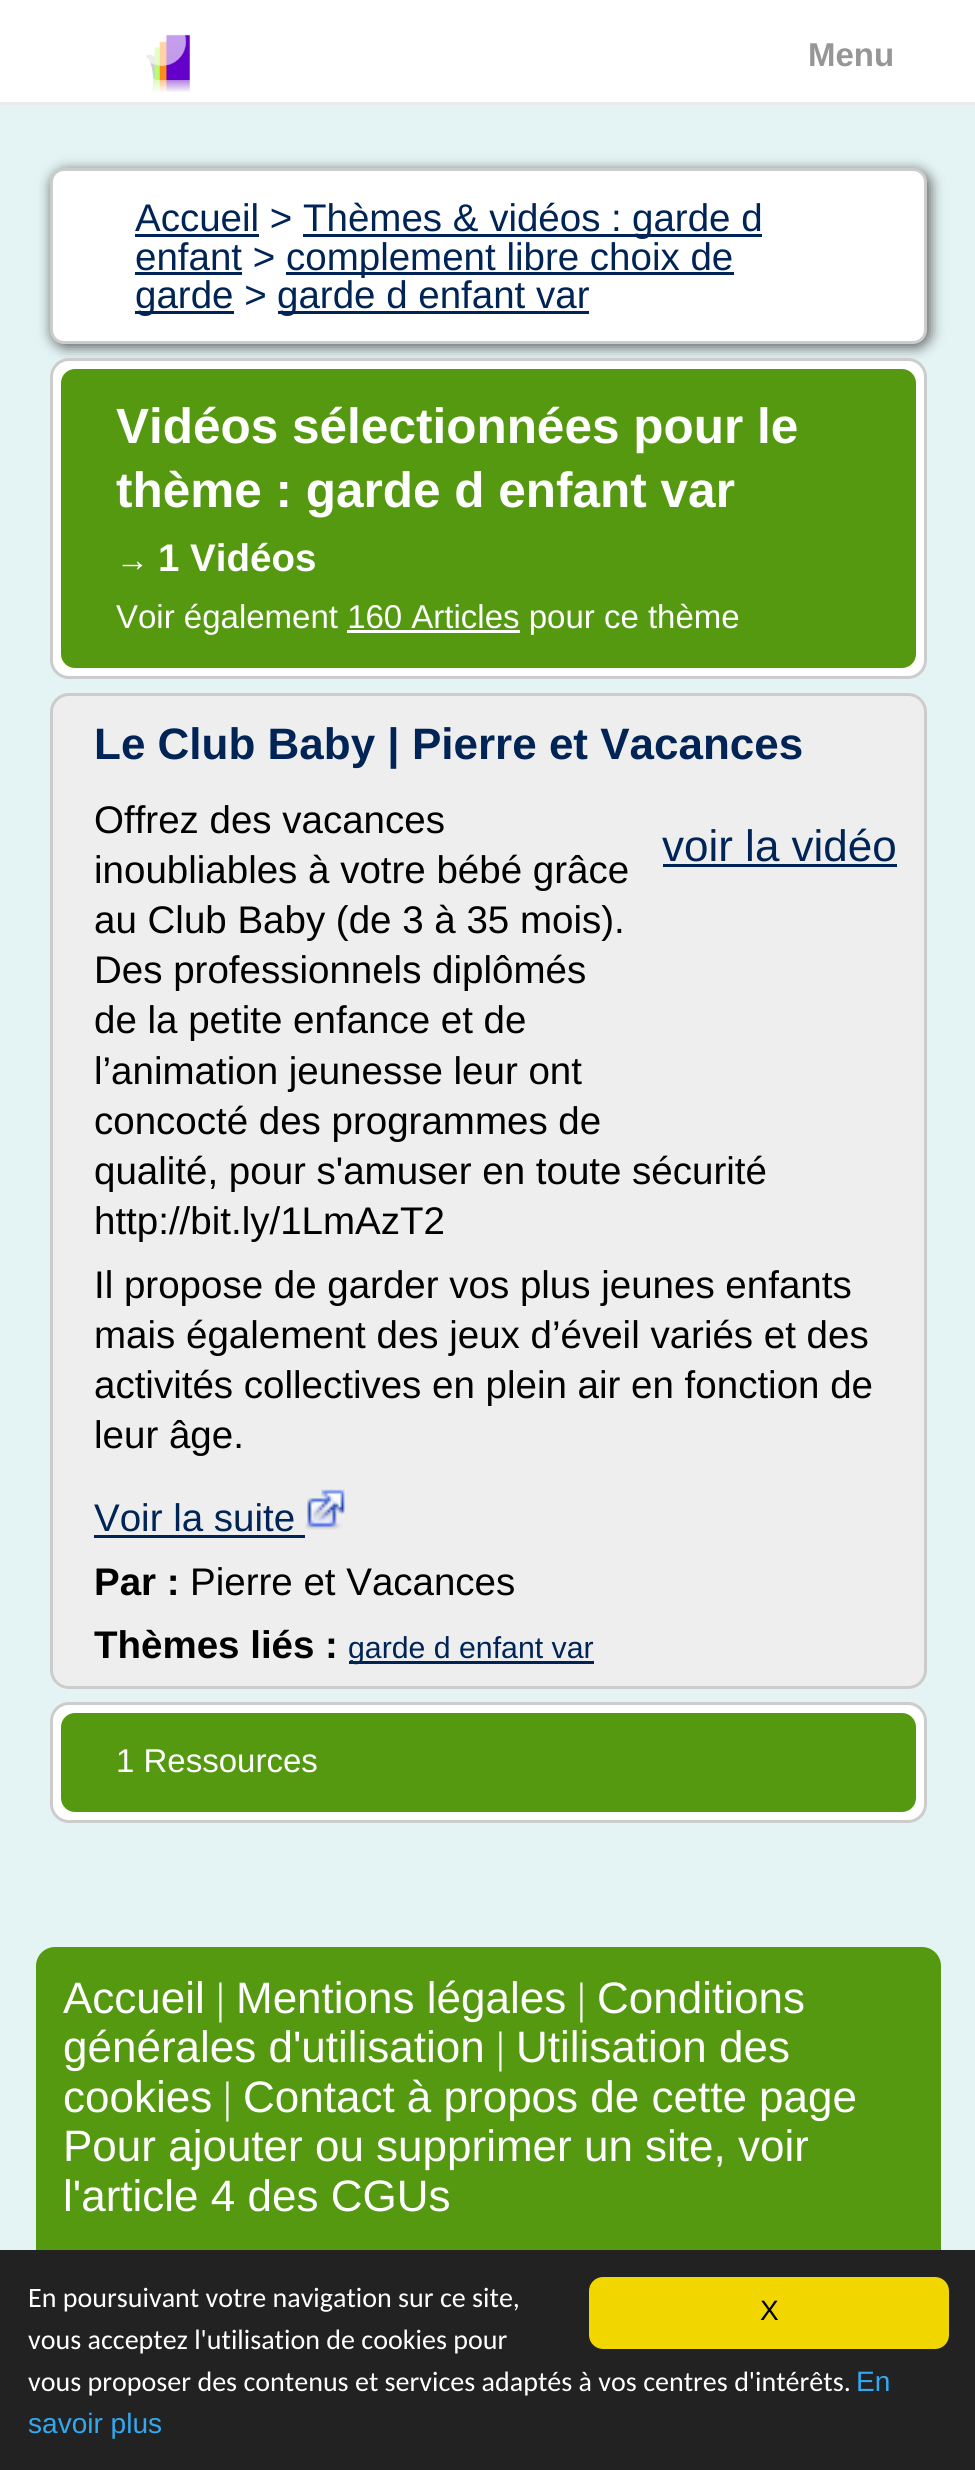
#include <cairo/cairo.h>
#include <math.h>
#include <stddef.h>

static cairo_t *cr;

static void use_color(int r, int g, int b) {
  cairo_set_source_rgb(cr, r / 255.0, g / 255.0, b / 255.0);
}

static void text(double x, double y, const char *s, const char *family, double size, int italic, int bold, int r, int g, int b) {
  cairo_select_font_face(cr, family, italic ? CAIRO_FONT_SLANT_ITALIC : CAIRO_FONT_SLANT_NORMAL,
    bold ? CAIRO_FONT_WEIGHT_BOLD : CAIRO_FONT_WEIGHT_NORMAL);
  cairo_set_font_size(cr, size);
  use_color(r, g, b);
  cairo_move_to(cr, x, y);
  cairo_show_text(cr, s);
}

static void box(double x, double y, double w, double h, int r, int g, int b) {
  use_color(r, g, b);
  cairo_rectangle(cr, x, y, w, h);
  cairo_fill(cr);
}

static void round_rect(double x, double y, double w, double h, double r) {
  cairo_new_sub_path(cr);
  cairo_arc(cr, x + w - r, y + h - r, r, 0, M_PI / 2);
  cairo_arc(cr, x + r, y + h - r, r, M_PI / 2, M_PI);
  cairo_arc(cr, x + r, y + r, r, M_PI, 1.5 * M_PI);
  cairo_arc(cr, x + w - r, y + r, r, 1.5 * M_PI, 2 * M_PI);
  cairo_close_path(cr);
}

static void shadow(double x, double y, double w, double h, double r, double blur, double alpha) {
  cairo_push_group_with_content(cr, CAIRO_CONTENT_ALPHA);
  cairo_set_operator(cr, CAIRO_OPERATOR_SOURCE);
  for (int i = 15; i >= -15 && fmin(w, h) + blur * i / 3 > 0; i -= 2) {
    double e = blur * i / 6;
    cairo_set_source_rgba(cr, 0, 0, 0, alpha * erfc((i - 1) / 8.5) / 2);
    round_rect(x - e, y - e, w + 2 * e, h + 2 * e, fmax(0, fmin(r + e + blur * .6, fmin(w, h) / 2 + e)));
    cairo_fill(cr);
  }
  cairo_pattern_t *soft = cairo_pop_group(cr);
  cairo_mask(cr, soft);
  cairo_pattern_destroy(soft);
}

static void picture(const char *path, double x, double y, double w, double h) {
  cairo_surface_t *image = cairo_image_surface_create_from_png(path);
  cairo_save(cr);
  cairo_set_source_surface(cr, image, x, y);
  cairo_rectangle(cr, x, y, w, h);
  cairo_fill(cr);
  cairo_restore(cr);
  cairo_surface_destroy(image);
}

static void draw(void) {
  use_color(228, 244, 244);
  cairo_paint(cr);
  box(0, 0, 975, 102, 255, 255, 255);
  box(0, 102, 975, 3, 235, 235, 235);
  picture("img_01.png", 146, 34, 44, 58);
  use_color(85, 85, 85);
  shadow(52, 171, 878, 176, 14, 7, 1);
  use_color(255, 255, 255);
  round_rect(51.5, 169.5, 874, 173, 12.5);
  cairo_fill_preserve(cr);
  use_color(204, 204, 204);
  cairo_set_line_width(cr, 3);
  cairo_stroke(cr);
  box(135, 234, 124, 3, 0, 36, 85);
  box(303, 234, 459, 3, 0, 36, 85);
  box(135, 272, 107, 3, 0, 36, 85);
  box(286, 272, 448, 3, 0, 36, 85);
  box(135, 311, 99, 3, 0, 36, 85);
  box(278, 311, 311, 3, 0, 36, 85);
  use_color(255, 255, 255);
  round_rect(51.5, 359.5, 874, 318, 17.5);
  cairo_fill_preserve(cr);
  use_color(204, 204, 204);
  cairo_stroke(cr);
  use_color(85, 153, 17);
  round_rect(61, 369, 855, 299, 14);
  cairo_fill(cr);
  box(347, 630, 173, 3, 255, 255, 255);
  use_color(238, 238, 238);
  round_rect(51.5, 694.5, 874, 993, 17.5);
  cairo_fill_preserve(cr);
  use_color(204, 204, 204);
  cairo_stroke(cr);
  box(663, 864, 234, 3, 0, 36, 85);
  box(94, 1535, 211, 3, 0, 36, 85);
  picture("img_02.png", 305, 1489, 40, 41);
  box(349, 1661, 245, 3, 0, 36, 85);
  use_color(255, 255, 255);
  round_rect(51.5, 1703.5, 874, 118, 17.5);
  cairo_fill_preserve(cr);
  use_color(204, 204, 204);
  cairo_stroke(cr);
  use_color(85, 153, 17);
  round_rect(61, 1713, 855, 99, 14);
  cairo_fill(cr);
  cairo_new_path(cr);
  cairo_move_to(cr, 55, 1947);
  cairo_line_to(cr, 922, 1947);
  cairo_curve_to(cr, 932.5, 1947, 941, 1955.5, 941, 1966);
  cairo_line_to(cr, 941, 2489);
  cairo_line_to(cr, 36, 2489);
  cairo_line_to(cr, 36, 1966);
  cairo_curve_to(cr, 36, 1955.5, 44.5, 1947, 55, 1947);
  cairo_close_path(cr);
  cairo_fill(cr);
  box(0, 2250, 975, 220, 34, 34, 34);
  use_color(241, 214, 0);
  round_rect(589, 2277, 360, 72, 14);
  cairo_fill(cr);
  text(808, 66, "Menu", "Liberation Sans", 33, 0, 1, 150, 150, 150);
  text(135, 231, "Accueil > Thèmes & vidéos :", "Liberation Sans", 38.5, 0, 0, 0, 36, 85);
  text(632, 231, "garde d", "Liberation Sans", 38.5, 0, 0, 0, 36, 85);
  text(135, 270, "enfant >", "Liberation Sans", 38.5, 0, 0, 0, 36, 85);
  text(286, 270, "complement libre choix de", "Liberation Sans", 38.5, 0, 0, 0, 36, 85);
  text(135, 308, "garde >", "Liberation Sans", 38.5, 0, 0, 0, 36, 85);
  text(277, 308, "garde d enfant var", "Liberation Sans", 38.5, 0, 0, 0, 36, 85);
  text(116, 443, "Vidéos sélectionnées pour le", "Liberation Sans", 49.5, 0, 1, 255, 255, 255);
  text(116, 507, "thème : garde d enfant var", "Liberation Sans", 49.5, 0, 1, 255, 255, 255);
  text(116, 571, "→", "Liberation Sans", 33, 0, 0, 255, 255, 255);
  text(158, 571, "1 Vidéos", "Liberation Sans", 38.5, 0, 1, 255, 255, 255);
  text(116, 628, "Voir également 160 Articles pour ce thème", "Liberation Sans", 33, 0, 0, 255, 255, 255);
  text(94, 759, "Le Club Baby | Pierre et Vacances", "Liberation Sans", 44, 0, 1, 0, 36, 85);
  text(94, 833, "Offrez des vacances", "Liberation Sans", 38.5, 0, 0, 0, 0, 0);
  text(94, 883, "inoubliables à votre bébé grâce", "Liberation Sans", 38.5, 0, 0, 0, 0, 0);
  text(94, 933, "au Club Baby (de 3 à 35 mois).", "Liberation Sans", 38.5, 0, 0, 0, 0, 0);
  text(94, 983, "Des professionnels diplômés", "Liberation Sans", 38.5, 0, 0, 0, 0, 0);
  text(94, 1033, "de la petite enfance et de", "Liberation Sans", 38.5, 0, 0, 0, 0, 0);
  text(94, 1084, "l’animation jeunesse leur ont", "Liberation Sans", 38.5, 0, 0, 0, 0, 0);
  text(94, 1134, "concocté des programmes de", "Liberation Sans", 38.5, 0, 0, 0, 0, 0);
  text(94, 1184, "qualité, pour s'amuser en toute sécurité", "Liberation Sans", 38.5, 0, 0, 0, 0, 0);
  text(94, 1234, "http://bit.ly/1LmAzT2", "Liberation Sans", 38.5, 0, 0, 0, 0, 0);
  text(662, 861, "voir la vidéo", "Liberation Sans", 44, 0, 0, 0, 36, 85);
  text(94, 1298, "Il propose de garder vos plus jeunes enfants", "Liberation Sans", 38.5, 0, 0, 0, 0, 0);
  text(94, 1348, "mais également des jeux d’éveil variés et des", "Liberation Sans", 38.5, 0, 0, 0, 0, 0);
  text(94, 1398, "activités collectives en plein air en fonction de", "Liberation Sans", 38.5, 0, 0, 0, 0, 0);
  text(94, 1448, "leur âge.", "Liberation Sans", 38.5, 0, 0, 0, 0, 0);
  text(94, 1531, "Voir la suite", "Liberation Sans", 38.5, 0, 0, 0, 36, 85);
  text(94, 1595, "Par :", "Liberation Sans", 38.5, 0, 1, 0, 0, 0);
  text(190, 1595, "Pierre et Vacances", "Liberation Sans", 38.5, 0, 0, 0, 0, 0);
  text(94, 1658, "Thèmes liés :", "Liberation Sans", 38.5, 0, 1, 0, 0, 0);
  text(348, 1658, "garde d enfant var", "Liberation Sans", 30.25, 0, 0, 0, 36, 85);
  text(116, 1772, "1 Ressources", "Liberation Sans", 33, 0, 0, 255, 255, 255);
  text(63, 2013, "Accueil", "Liberation Sans", 44, 0, 0, 255, 255, 255);
  text(216, 2013, "|", "Liberation Serif", 44, 0, 0, 255, 255, 255);
  text(236, 2013, "Mentions légales", "Liberation Sans", 44, 0, 0, 255, 255, 255);
  text(577, 2013, "|", "Liberation Serif", 44, 0, 0, 255, 255, 255);
  text(597, 2013, "Conditions", "Liberation Sans", 44, 0, 0, 255, 255, 255);
  text(63, 2062, "générales d'utilisation", "Liberation Sans", 44, 0, 0, 255, 255, 255);
  text(496, 2062, "|", "Liberation Serif", 44, 0, 0, 255, 255, 255);
  text(516, 2062, "Utilisation des", "Liberation Sans", 44, 0, 0, 255, 255, 255);
  text(63, 2112, "cookies", "Liberation Sans", 44, 0, 0, 255, 255, 255);
  text(223, 2112, "|", "Liberation Serif", 44, 0, 0, 255, 255, 255);
  text(243, 2112, "Contact à propos de cette page", "Liberation Sans", 44, 0, 0, 255, 255, 255);
  text(63, 2161, "Pour ajouter ou supprimer un site, voir", "Liberation Sans", 44, 0, 0, 255, 255, 255);
  text(63, 2211, "l'article 4 des CGUs", "Liberation Sans", 44, 0, 0, 255, 255, 255);
  text(28, 2307, "En poursuivant votre navigation sur ce site,", "Carlito", 28.05, 0, 0, 255, 255, 255);
  text(28, 2349, "vous acceptez l'utilisation de cookies pour", "Carlito", 28.05, 0, 0, 255, 255, 255);
  text(28, 2391, "vous proposer des contenus et services adaptés à vos centres d'intérêts.", "Carlito", 28.05, 0, 0, 255, 255, 255);
  text(856, 2391, "En", "Liberation Sans", 28.05, 0, 0, 49, 168, 240);
  text(28, 2433, "savoir plus", "Liberation Sans", 28.05, 0, 0, 49, 168, 240);
  text(760, 2320, "X", "Liberation Sans", 28.05, 0, 0, 0, 0, 0);
}

int main(void) {
  cairo_surface_t *surface = cairo_image_surface_create(CAIRO_FORMAT_RGB24, 975, 2470);
  cr = cairo_create(surface);
  cairo_font_options_t *options = cairo_font_options_create();
  cairo_font_options_set_hint_metrics(options, CAIRO_HINT_METRICS_OFF);
  cairo_font_options_set_hint_style(options, CAIRO_HINT_STYLE_NONE);
  cairo_set_font_options(cr, options);
  cairo_set_miter_limit(cr, 4);
  draw();
  cairo_surface_write_to_png(surface, "out.png");
  cairo_font_options_destroy(options);
  cairo_destroy(cr);
  cairo_surface_destroy(surface);
  return 0;
}
